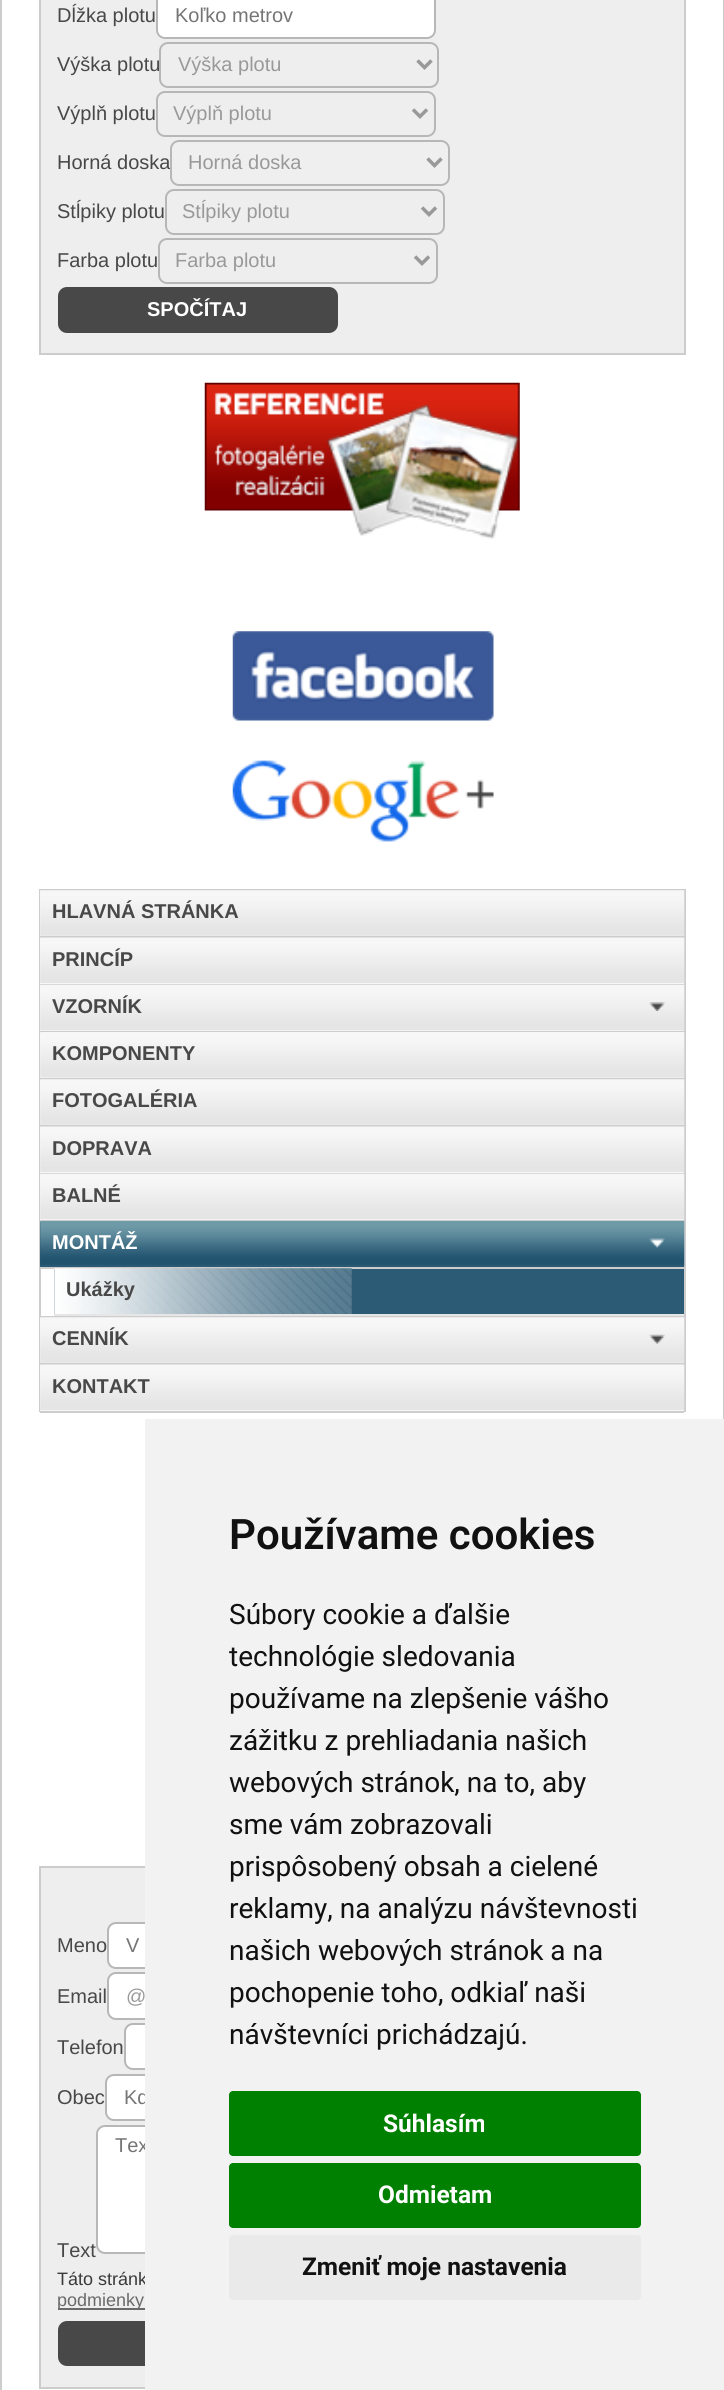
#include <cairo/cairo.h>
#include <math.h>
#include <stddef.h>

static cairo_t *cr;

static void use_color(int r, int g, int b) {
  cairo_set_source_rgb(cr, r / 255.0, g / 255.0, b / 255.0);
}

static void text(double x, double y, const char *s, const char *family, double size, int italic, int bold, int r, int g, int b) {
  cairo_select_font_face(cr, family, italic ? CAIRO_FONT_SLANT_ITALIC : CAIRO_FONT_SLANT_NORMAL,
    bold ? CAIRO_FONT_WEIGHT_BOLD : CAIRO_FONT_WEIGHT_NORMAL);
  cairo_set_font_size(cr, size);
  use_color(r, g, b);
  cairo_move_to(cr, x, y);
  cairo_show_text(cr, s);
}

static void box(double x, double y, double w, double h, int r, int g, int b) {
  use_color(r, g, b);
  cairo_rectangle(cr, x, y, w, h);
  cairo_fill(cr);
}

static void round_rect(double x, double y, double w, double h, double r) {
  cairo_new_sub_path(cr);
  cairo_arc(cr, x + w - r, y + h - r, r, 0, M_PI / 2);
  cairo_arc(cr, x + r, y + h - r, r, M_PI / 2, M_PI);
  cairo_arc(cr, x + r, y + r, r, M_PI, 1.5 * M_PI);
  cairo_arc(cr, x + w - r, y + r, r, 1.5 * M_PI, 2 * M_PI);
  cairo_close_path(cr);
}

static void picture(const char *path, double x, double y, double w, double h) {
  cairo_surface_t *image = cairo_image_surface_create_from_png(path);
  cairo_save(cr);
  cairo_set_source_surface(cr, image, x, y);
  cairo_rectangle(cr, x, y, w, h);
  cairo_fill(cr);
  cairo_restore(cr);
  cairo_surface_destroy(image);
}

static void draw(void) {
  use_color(255, 255, 255);
  cairo_paint(cr);
  box(723, 0, 1, 1419, 205, 205, 205);
  box(0, 0, 2, 2390, 205, 205, 205);
  use_color(238, 238, 238);
  cairo_rectangle(cr, 40, -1, 645, 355);
  cairo_fill_preserve(cr);
  use_color(204, 204, 204);
  cairo_stroke(cr);
  use_color(255, 255, 255);
  round_rect(157, -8, 278, 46, 8);
  cairo_fill_preserve(cr);
  use_color(183, 183, 183);
  cairo_stroke(cr);
  round_rect(160, 43, 278, 44, 8);
  cairo_stroke(cr);
  cairo_new_path(cr);
  cairo_move_to(cr, 417.5, 60.5);
  cairo_line_to(cr, 424.5, 67.5);
  cairo_line_to(cr, 431.5, 60.5);
  use_color(153, 153, 153);
  cairo_set_line_width(cr, 3.5);
  cairo_stroke(cr);
  round_rect(157, 92, 278, 44, 8);
  use_color(183, 183, 183);
  cairo_set_line_width(cr, 2);
  cairo_stroke(cr);
  cairo_new_path(cr);
  cairo_move_to(cr, 413, 109.5);
  cairo_line_to(cr, 420, 116.5);
  cairo_line_to(cr, 427, 109.5);
  use_color(153, 153, 153);
  cairo_set_line_width(cr, 3.5);
  cairo_stroke(cr);
  round_rect(166, 190, 278, 44, 8);
  use_color(183, 183, 183);
  cairo_set_line_width(cr, 2);
  cairo_stroke(cr);
  cairo_new_path(cr);
  cairo_move_to(cr, 422, 207.5);
  cairo_line_to(cr, 429, 214.5);
  cairo_line_to(cr, 436, 207.5);
  use_color(153, 153, 153);
  cairo_set_line_width(cr, 3.5);
  cairo_stroke(cr);
  round_rect(159, 239, 278, 44, 8);
  use_color(183, 183, 183);
  cairo_set_line_width(cr, 2);
  cairo_stroke(cr);
  cairo_new_path(cr);
  cairo_move_to(cr, 415, 256.5);
  cairo_line_to(cr, 422, 263.5);
  cairo_line_to(cr, 429, 256.5);
  use_color(153, 153, 153);
  cairo_set_line_width(cr, 3.5);
  cairo_stroke(cr);
  use_color(72, 72, 72);
  round_rect(58, 287, 280, 46, 9);
  cairo_fill(cr);
  picture("img_01.png", 204, 382, 316, 157);
  picture("img_02.png", 232, 631, 262, 90);
  picture("img_03.png", 232, 760, 262, 82);
  box(39, 889, 647, 2, 205, 205, 205);
  box(684, 889, 2, 523, 205, 205, 205);
  box(39, 889, 2, 523, 205, 205, 205);
  box(40, 891, 644, 45, 247, 247, 247);
  picture("img_04.png", 40, 890, 645, 46);
  box(40, 936, 644, 2, 205, 205, 205);
  box(40, 938, 644, 46, 247, 247, 247);
  picture("img_05.png", 40, 937, 645, 46);
  box(40, 984, 644, 1, 205, 205, 205);
  box(40, 985, 644, 46, 247, 247, 247);
  picture("img_06.png", 40, 984, 645, 47);
  box(40, 1031, 644, 2, 205, 205, 205);
  picture("img_07.png", 649, 1002, 16, 9);
  box(40, 1033, 644, 45, 247, 247, 247);
  picture("img_08.png", 40, 1032, 645, 46);
  box(40, 1078, 644, 2, 205, 205, 205);
  box(40, 1080, 644, 45, 247, 247, 247);
  picture("img_04.png", 40, 1079, 645, 46);
  box(40, 1125, 644, 2, 205, 205, 205);
  box(40, 1127, 644, 46, 247, 247, 247);
  picture("img_05.png", 40, 1126, 645, 46);
  box(40, 1173, 644, 1, 205, 205, 205);
  box(40, 1174, 644, 46, 247, 247, 247);
  picture("img_06.png", 40, 1173, 645, 47);
  box(40, 1220, 644, 2, 205, 205, 205);
  box(40, 1222, 644, 45, 44, 91, 117);
  picture("img_09.png", 40, 1221, 645, 46);
  box(40, 1267, 644, 2, 205, 205, 205);
  picture("img_10.png", 649, 1238, 16, 10);
  box(40, 1316, 644, 2, 205, 205, 205);
  box(54, 1269, 630, 45, 44, 91, 117);
  picture("img_11.png", 54, 1268, 298, 46);
  box(54, 1314, 630, 2, 230, 230, 230);
  box(40, 1318, 644, 45, 247, 247, 247);
  picture("img_04.png", 40, 1317, 645, 46);
  box(40, 1363, 644, 2, 205, 205, 205);
  picture("img_12.png", 649, 1334, 16, 10);
  box(40, 1365, 644, 46, 247, 247, 247);
  picture("img_05.png", 40, 1364, 645, 46);
  box(40, 1411, 644, 2, 205, 205, 205);
  box(41, 1868, 104, 519, 238, 238, 238);
  cairo_rectangle(cr, 40, 1867, 645, 521);
  use_color(204, 204, 204);
  cairo_set_line_width(cr, 2);
  cairo_stroke(cr);
  use_color(255, 255, 255);
  round_rect(108, 1923, 278, 45, 8);
  cairo_fill_preserve(cr);
  use_color(183, 183, 183);
  cairo_stroke(cr);
  use_color(255, 255, 255);
  round_rect(108, 1973, 278, 46, 8);
  cairo_fill_preserve(cr);
  use_color(183, 183, 183);
  cairo_stroke(cr);
  use_color(255, 255, 255);
  round_rect(125, 2024, 278, 45, 8);
  cairo_fill_preserve(cr);
  use_color(183, 183, 183);
  cairo_stroke(cr);
  use_color(255, 255, 255);
  round_rect(106, 2075, 278, 45, 8);
  cairo_fill_preserve(cr);
  use_color(183, 183, 183);
  cairo_stroke(cr);
  use_color(255, 255, 255);
  round_rect(97, 2126, 278, 127, 8);
  cairo_fill_preserve(cr);
  use_color(183, 183, 183);
  cairo_stroke(cr);
  box(58, 2308, 87, 2, 106, 106, 106);
  use_color(72, 72, 72);
  round_rect(58, 2321, 280, 45, 9);
  cairo_fill(cr);
  text(57, 22, "Dĺžka plotu", "Liberation Sans", 20, 0, 0, 72, 72, 72);
  text(175, 22, "Koľko metrov", "Liberation Sans", 20, 0, 0, 117, 117, 117);
  text(57, 71, "Výška plotu", "Liberation Sans", 20, 0, 0, 72, 72, 72);
  text(178, 71, "Výška plotu", "Liberation Sans", 20, 0, 0, 153, 153, 153);
  text(57, 120, "Výplň plotu", "Liberation Sans", 20, 0, 0, 72, 72, 72);
  text(173, 120, "Výplň plotu", "Liberation Sans", 20, 0, 0, 153, 153, 153);
  text(57, 169, "Horná doska", "Liberation Sans", 20, 0, 0, 72, 72, 72);
  use_color(239, 239, 239);
  round_rect(171, 141, 278, 44, 8);
  cairo_fill_preserve(cr);
  use_color(183, 183, 183);
  cairo_stroke(cr);
  cairo_new_path(cr);
  cairo_move_to(cr, 427.5, 158.5);
  cairo_line_to(cr, 434.5, 165.5);
  cairo_line_to(cr, 441.5, 158.5);
  use_color(153, 153, 153);
  cairo_set_line_width(cr, 3.5);
  cairo_stroke(cr);
  text(188, 169, "Horná doska", "Liberation Sans", 20, 0, 0, 153, 153, 153);
  text(57, 218, "Stĺpiky plotu", "Liberation Sans", 20, 0, 0, 72, 72, 72);
  text(182, 218, "Stĺpiky plotu", "Liberation Sans", 20, 0, 0, 153, 153, 153);
  text(57, 267, "Farba plotu", "Liberation Sans", 20, 0, 0, 72, 72, 72);
  text(175, 267, "Farba plotu", "Liberation Sans", 20, 0, 0, 153, 153, 153);
  text(147, 316, "SPOČÍTAJ", "Liberation Sans", 20, 0, 1, 255, 255, 255);
  text(52, 918, "HLAVNÁ STRÁNKA", "Liberation Sans", 20, 0, 1, 72, 72, 72);
  text(52, 966, "PRINCÍP", "Liberation Sans", 20, 0, 1, 72, 72, 72);
  text(52, 1013, "VZORNÍK", "Liberation Sans", 20, 0, 1, 72, 72, 72);
  text(52, 1060, "KOMPONENTY", "Liberation Sans", 20, 0, 1, 72, 72, 72);
  text(52, 1107, "FOTOGALÉRIA", "Liberation Sans", 20, 0, 1, 72, 72, 72);
  text(52, 1155, "DOPRAVA", "Liberation Sans", 20, 0, 1, 72, 72, 72);
  text(52, 1202, "BALNÉ", "Liberation Sans", 20, 0, 1, 72, 72, 72);
  text(52, 1249, "MONTÁŽ", "Liberation Sans", 20, 0, 1, 255, 255, 255);
  text(66, 1296, "Ukážky", "Liberation Sans", 20, 0, 1, 72, 72, 72);
  text(52, 1345, "CENNÍK", "Liberation Sans", 20, 0, 1, 72, 72, 72);
  text(52, 1393, "KONTAKT", "Liberation Sans", 20, 0, 1, 72, 72, 72);
  text(57, 1952, "Meno", "Liberation Sans", 20, 0, 0, 72, 72, 72);
  text(126, 1952, "V", "Liberation Sans", 20, 0, 0, 117, 117, 117);
  text(57, 2003, "Email", "Liberation Sans", 20, 0, 0, 72, 72, 72);
  text(126, 2003, "@", "Liberation Sans", 20, 0, 0, 153, 153, 153);
  text(57, 2054, "Telefon", "Liberation Sans", 20, 0, 0, 72, 72, 72);
  text(57, 2104, "Obec", "Liberation Sans", 20, 0, 0, 72, 72, 72);
  text(124, 2104, "Kd", "Liberation Sans", 20, 0, 0, 117, 117, 117);
  text(115, 2152, "Tex", "Liberation Sans", 20, 0, 0, 117, 117, 117);
  text(57, 2257, "Text", "Liberation Sans", 20, 0, 0, 72, 72, 72);
  text(57, 2285, "Táto stránk", "Liberation Sans", 18, 0, 0, 58, 58, 58);
  text(57, 2306, "podmienky", "Liberation Sans", 18, 0, 0, 106, 106, 106);
  box(145, 1419, 579, 971, 242, 242, 242);
  text(229, 1549, "Používame cookies", "Roboto SemiBold", 42, 0, 0, 17, 17, 17);
  text(229, 1624, "Súbory cookie a ďalšie", "Roboto", 28, 0, 0, 17, 17, 17);
  text(229, 1666, "technológie sledovania", "Roboto", 28, 0, 0, 17, 17, 17);
  text(229, 1708, "používame na zlepšenie vášho", "Roboto", 28, 0, 0, 17, 17, 17);
  text(229, 1750, "zážitku z prehliadania našich", "Roboto", 28, 0, 0, 17, 17, 17);
  text(229, 1792, "webových stránok, na to, aby", "Roboto", 28, 0, 0, 17, 17, 17);
  text(229, 1834, "sme vám zobrazovali", "Roboto", 28, 0, 0, 17, 17, 17);
  text(229, 1876, "prispôsobený obsah a cielené", "Roboto", 28, 0, 0, 17, 17, 17);
  text(229, 1918, "reklamy, na analýzu návštevnosti", "Roboto", 28, 0, 0, 17, 17, 17);
  text(229, 1960, "našich webových stránok a na", "Roboto", 28, 0, 0, 17, 17, 17);
  text(229, 2002, "pochopenie toho, odkiaľ naši", "Roboto", 28, 0, 0, 17, 17, 17);
  text(229, 2044, "návštevníci prichádzajú.", "Roboto", 28, 0, 0, 17, 17, 17);
  use_color(0, 128, 0);
  round_rect(229, 2091, 412, 65, 4);
  cairo_fill(cr);
  text(383, 2132, "Súhlasím", "Roboto", 24.5, 0, 1, 255, 255, 255);
  use_color(0, 128, 0);
  round_rect(229, 2163, 412, 65, 4);
  cairo_fill(cr);
  text(378, 2203, "Odmietam", "Roboto", 24.5, 0, 1, 255, 255, 255);
  use_color(234, 234, 234);
  round_rect(229, 2235, 412, 65, 4);
  cairo_fill(cr);
  text(302, 2275, "Zmeniť moje nastavenia", "Roboto", 24.5, 0, 1, 17, 17, 17);
}

int main(void) {
  cairo_surface_t *surface = cairo_image_surface_create(CAIRO_FORMAT_RGB24, 724, 2390);
  cr = cairo_create(surface);
  cairo_font_options_t *options = cairo_font_options_create();
  cairo_font_options_set_hint_metrics(options, CAIRO_HINT_METRICS_OFF);
  cairo_font_options_set_hint_style(options, CAIRO_HINT_STYLE_NONE);
  cairo_set_font_options(cr, options);
  cairo_set_miter_limit(cr, 4);
  draw();
  cairo_surface_write_to_png(surface, "out.png");
  cairo_font_options_destroy(options);
  cairo_destroy(cr);
  cairo_surface_destroy(surface);
  return 0;
}
